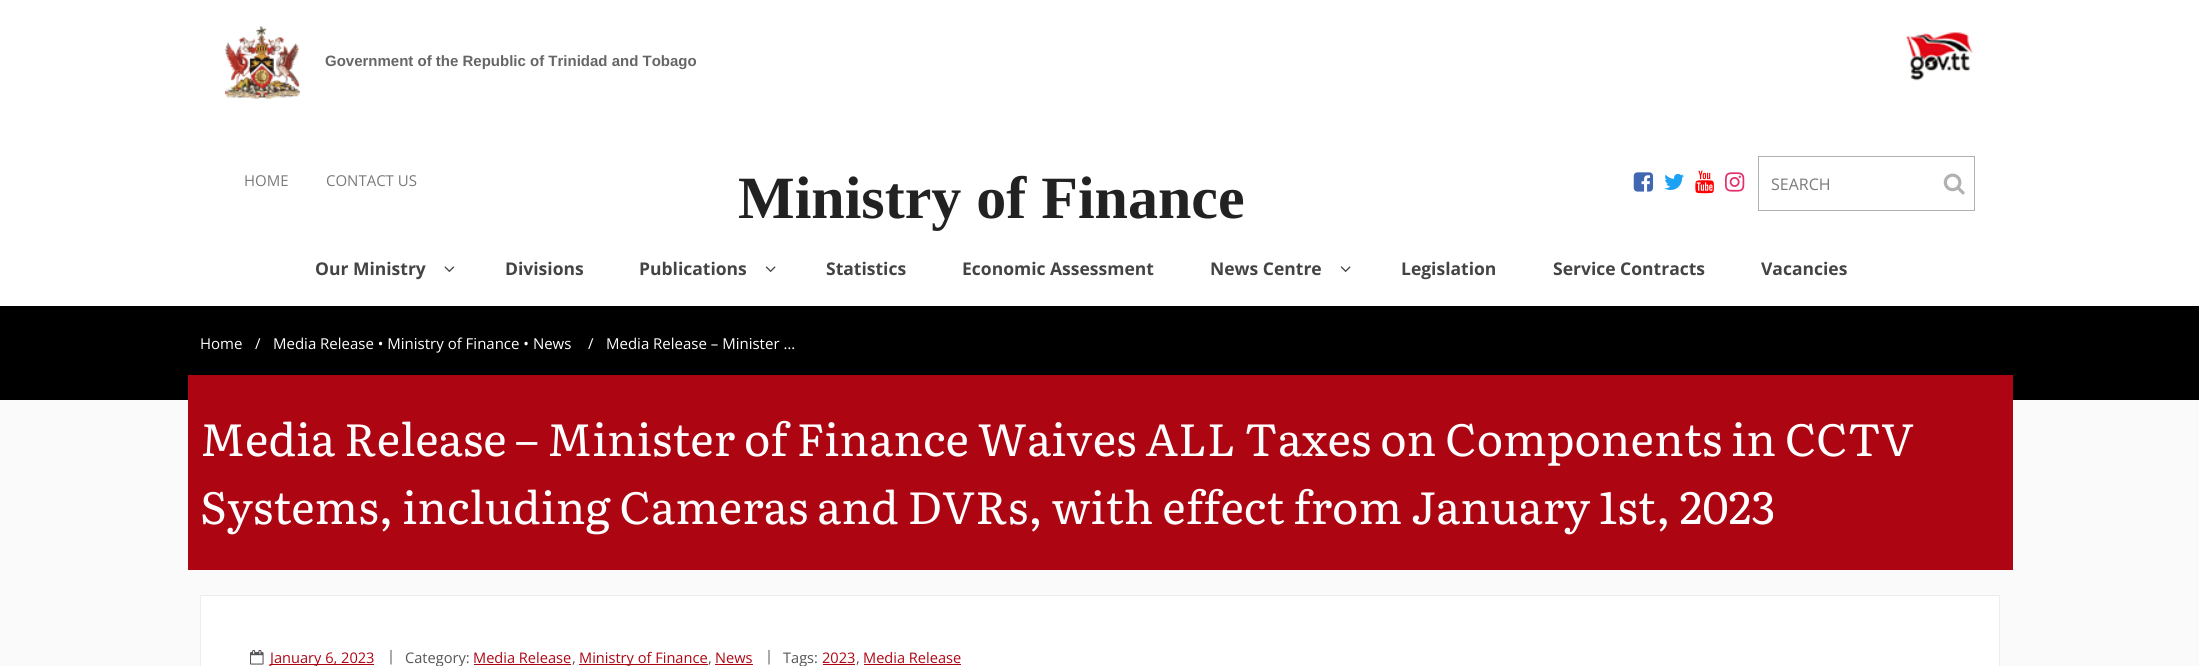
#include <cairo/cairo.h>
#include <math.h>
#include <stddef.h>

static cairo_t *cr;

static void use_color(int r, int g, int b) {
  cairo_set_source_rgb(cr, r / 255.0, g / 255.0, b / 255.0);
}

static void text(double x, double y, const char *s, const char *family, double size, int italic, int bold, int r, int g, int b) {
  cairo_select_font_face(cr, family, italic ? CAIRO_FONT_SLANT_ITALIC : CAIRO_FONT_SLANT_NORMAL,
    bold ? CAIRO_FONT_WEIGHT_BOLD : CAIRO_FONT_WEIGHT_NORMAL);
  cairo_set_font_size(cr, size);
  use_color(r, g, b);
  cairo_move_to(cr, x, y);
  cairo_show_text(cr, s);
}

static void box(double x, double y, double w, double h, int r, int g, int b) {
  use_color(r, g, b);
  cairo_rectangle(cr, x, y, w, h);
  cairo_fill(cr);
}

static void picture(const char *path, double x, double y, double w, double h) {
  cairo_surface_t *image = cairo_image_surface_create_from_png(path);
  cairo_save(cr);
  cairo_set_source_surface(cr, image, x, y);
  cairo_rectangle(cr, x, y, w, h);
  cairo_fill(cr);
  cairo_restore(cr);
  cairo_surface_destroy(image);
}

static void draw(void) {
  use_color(250, 250, 250);
  cairo_paint(cr);
  box(0, 0, 2199, 306, 255, 255, 255);
  picture("img_01.png", 225, 26, 75, 73);
  picture("img_02.png", 1906, 32, 67, 49);
  picture("img_03.png", 1633, 172, 21, 20);
  picture("img_04.png", 1664, 173, 20, 17);
  picture("img_05.png", 1695, 170, 19, 24);
  picture("img_06.png", 1725, 172, 20, 20);
  cairo_rectangle(cr, 1758.5, 156.5, 216, 54);
  use_color(177, 177, 179);
  cairo_set_line_width(cr, 1);
  cairo_stroke(cr);
  picture("img_07.png", 1943, 173, 22, 22);
  picture("img_08.png", 444, 266, 11, 6);
  picture("img_09.png", 765, 266, 11, 6);
  picture("img_09.png", 1340, 266, 11, 6);
  box(0, 306, 2199, 94, 0, 0, 0);
  box(188, 375, 1825, 195, 173, 5, 18);
  use_color(255, 255, 255);
  cairo_rectangle(cr, 200.5, 595.5, 1799, 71);
  cairo_fill_preserve(cr);
  use_color(238, 238, 238);
  cairo_stroke(cr);
  picture("img_10.png", 250, 649, 14, 16);
  box(270, 664, 104, 1, 173, 5, 18);
  box(474, 664, 97, 1, 173, 5, 18);
  box(579, 664, 129, 1, 173, 5, 18);
  box(715, 664, 38, 1, 173, 5, 18);
  box(823, 664, 32, 1, 173, 5, 18);
  box(864, 664, 97, 1, 173, 5, 18);
  text(325, 66, "Government of the Republic of Trinidad and Tobago", "Liberation Sans", 15, 0, 1, 102, 102, 102);
  text(244, 186, "HOME", "Open Sans", 15, 0, 0, 122, 122, 122);
  text(326, 186, "CONTACT US", "Open Sans", 15, 0, 0, 122, 122, 122);
  text(1771, 190, "SEARCH", "Open Sans", 16, 0, 0, 122, 122, 122);
  text(738, 218, "Ministry of Finance", "Liberation Serif", 60, 0, 1, 34, 34, 34);
  text(315, 275, "Our Ministry", "Open Sans", 17.5, 0, 1, 68, 68, 68);
  text(505, 275, "Divisions", "Open Sans", 17.5, 0, 1, 68, 68, 68);
  text(639, 275, "Publications", "Open Sans", 17.5, 0, 1, 68, 68, 68);
  text(826, 275, "Statistics", "Open Sans", 17.5, 0, 1, 68, 68, 68);
  text(962, 275, "Economic Assessment", "Open Sans", 17.5, 0, 1, 68, 68, 68);
  text(1210, 275, "News Centre", "Open Sans", 17.5, 0, 1, 68, 68, 68);
  text(1401, 275, "Legislation", "Open Sans", 17.5, 0, 1, 68, 68, 68);
  text(1553, 275, "Service Contracts", "Open Sans", 17.5, 0, 1, 68, 68, 68);
  text(1761, 275, "Vacancies", "Open Sans", 17.5, 0, 1, 68, 68, 68);
  text(200, 349, "Home", "Open Sans", 15, 0, 0, 255, 255, 255);
  text(255, 349, "/", "Open Sans", 15, 0, 0, 255, 255, 255);
  text(273, 349, "Media Release • Ministry of Finance • News", "Open Sans", 15, 0, 0, 255, 255, 255);
  text(588, 349, "/", "Open Sans", 15, 0, 0, 255, 255, 255);
  text(606, 349, "Media Release – Minister …", "Open Sans", 15, 0, 0, 255, 255, 255);
  text(200, 456, "Media Release – Minister of Finance Waives ALL Taxes on Components in CCTV", "Literata", 45, 0, 0, 255, 255, 255);
  text(200, 524, "Systems, including Cameras and DVRs, with effect from January 1st, 2023", "Literata", 45, 0, 0, 255, 255, 255);
  text(270, 663, "January 6, 2023", "Open Sans", 14.6, 0, 0, 173, 5, 18);
  text(387, 661, "|", "Open Sans", 14.6, 0, 0, 85, 85, 85);
  text(405, 663, "Category:", "Open Sans", 14.6, 0, 0, 85, 85, 85);
  text(473, 663, "Media Release", "Open Sans", 14.6, 0, 0, 173, 5, 18);
  text(572, 663, ",", "Open Sans", 14.6, 0, 0, 85, 85, 85);
  text(579, 663, "Ministry of Finance", "Open Sans", 14.6, 0, 0, 173, 5, 18);
  text(708, 663, ",", "Open Sans", 14.6, 0, 0, 85, 85, 85);
  text(715, 663, "News", "Open Sans", 14.6, 0, 0, 173, 5, 18);
  text(765, 661, "|", "Open Sans", 14.6, 0, 0, 85, 85, 85);
  text(783, 663, "Tags:", "Open Sans", 14.6, 0, 0, 85, 85, 85);
  text(822, 663, "2023", "Open Sans", 14.6, 0, 0, 173, 5, 18);
  text(856, 663, ",", "Open Sans", 14.6, 0, 0, 85, 85, 85);
  text(863, 663, "Media Release", "Open Sans", 14.6, 0, 0, 173, 5, 18);
}

int main(void) {
  cairo_surface_t *surface = cairo_image_surface_create(CAIRO_FORMAT_RGB24, 2199, 666);
  cr = cairo_create(surface);
  cairo_font_options_t *options = cairo_font_options_create();
  cairo_font_options_set_hint_metrics(options, CAIRO_HINT_METRICS_OFF);
  cairo_font_options_set_hint_style(options, CAIRO_HINT_STYLE_NONE);
  cairo_set_font_options(cr, options);
  cairo_set_miter_limit(cr, 4);
  draw();
  cairo_surface_write_to_png(surface, "out.png");
  cairo_font_options_destroy(options);
  cairo_destroy(cr);
  cairo_surface_destroy(surface);
  return 0;
}
